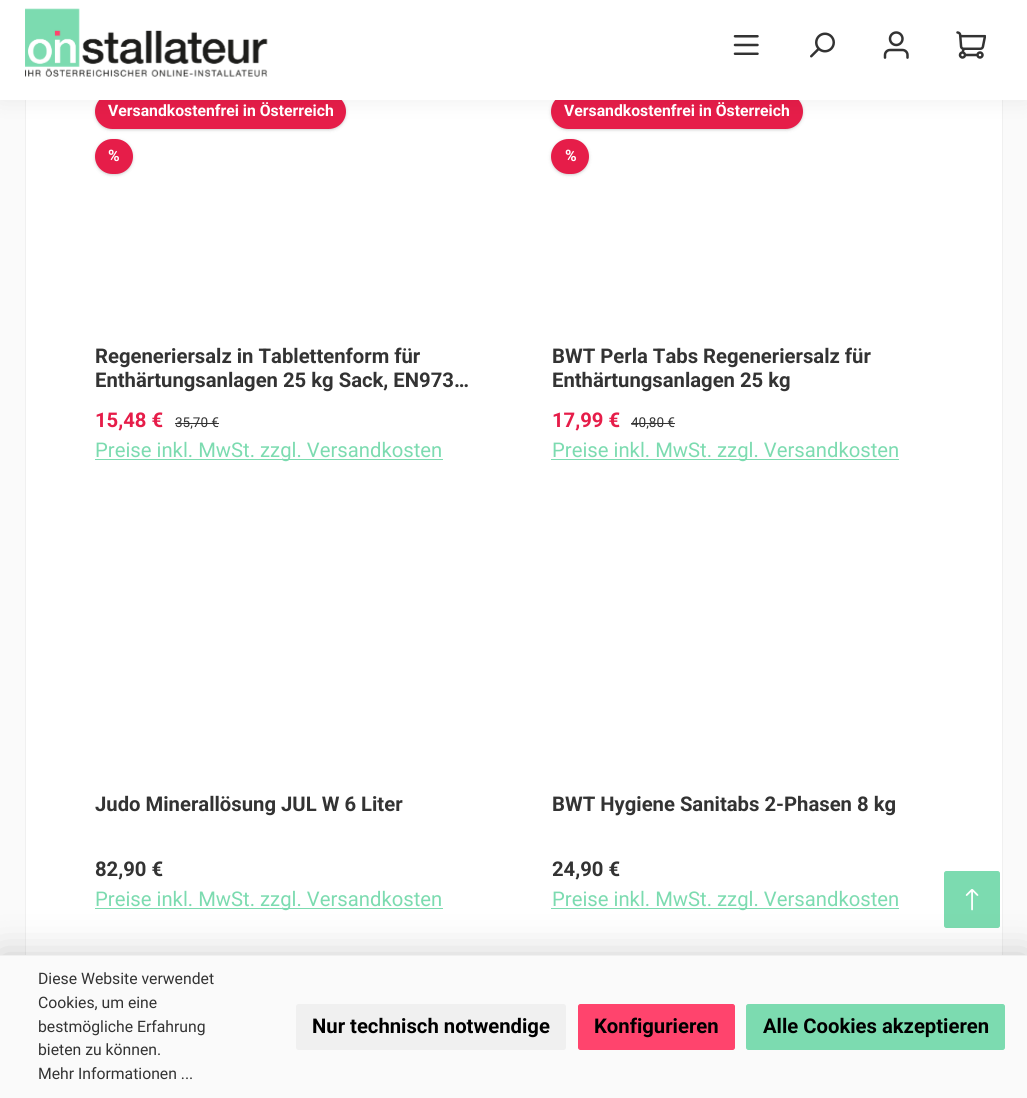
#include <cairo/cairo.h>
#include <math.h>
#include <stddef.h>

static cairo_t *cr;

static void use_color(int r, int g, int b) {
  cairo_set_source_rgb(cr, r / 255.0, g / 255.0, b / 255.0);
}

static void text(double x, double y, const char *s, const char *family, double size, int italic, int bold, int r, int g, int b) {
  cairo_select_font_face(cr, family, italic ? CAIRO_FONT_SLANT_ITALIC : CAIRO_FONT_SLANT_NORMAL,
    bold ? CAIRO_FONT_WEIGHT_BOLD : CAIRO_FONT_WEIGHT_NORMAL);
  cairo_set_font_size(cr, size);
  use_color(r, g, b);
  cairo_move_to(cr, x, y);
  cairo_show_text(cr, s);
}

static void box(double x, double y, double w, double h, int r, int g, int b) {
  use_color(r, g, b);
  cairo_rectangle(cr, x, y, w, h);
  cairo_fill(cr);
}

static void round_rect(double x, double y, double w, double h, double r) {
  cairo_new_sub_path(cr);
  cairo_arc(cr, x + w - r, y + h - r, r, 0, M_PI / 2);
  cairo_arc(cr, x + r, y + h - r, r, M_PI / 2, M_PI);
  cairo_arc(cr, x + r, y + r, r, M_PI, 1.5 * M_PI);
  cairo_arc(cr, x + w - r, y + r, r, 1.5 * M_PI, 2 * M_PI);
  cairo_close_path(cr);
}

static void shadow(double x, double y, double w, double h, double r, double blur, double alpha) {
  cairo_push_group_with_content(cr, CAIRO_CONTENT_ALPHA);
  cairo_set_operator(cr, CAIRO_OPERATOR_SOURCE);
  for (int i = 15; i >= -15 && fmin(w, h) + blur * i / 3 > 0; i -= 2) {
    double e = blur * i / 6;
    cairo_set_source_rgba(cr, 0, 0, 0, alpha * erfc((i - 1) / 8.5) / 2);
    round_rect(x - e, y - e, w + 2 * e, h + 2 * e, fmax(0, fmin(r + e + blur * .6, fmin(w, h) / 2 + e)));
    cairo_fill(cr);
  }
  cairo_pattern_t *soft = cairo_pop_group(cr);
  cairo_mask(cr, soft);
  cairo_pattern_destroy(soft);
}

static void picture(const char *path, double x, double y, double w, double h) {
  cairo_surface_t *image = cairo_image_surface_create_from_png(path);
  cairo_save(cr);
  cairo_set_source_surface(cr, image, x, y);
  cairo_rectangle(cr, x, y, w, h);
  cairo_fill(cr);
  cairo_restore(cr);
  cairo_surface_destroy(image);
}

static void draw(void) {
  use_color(250, 250, 250);
  cairo_paint(cr);
  box(26, 100, 976, 855, 255, 255, 255);
  cairo_rectangle(cr, 25.5, -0.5, 977, 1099);
  use_color(240, 240, 240);
  cairo_set_line_width(cr, 1);
  cairo_stroke(cr);
  use_color(0, 0, 0);
  shadow(95, 95, 251, 35, 17.5, 1, 0.1);
  shadow(95, 95, 251, 35, 17.5, 2, 0.1);
  use_color(230, 29, 73);
  round_rect(95, 94, 251, 35, 17.5);
  cairo_fill(cr);
  use_color(0, 0, 0);
  shadow(551, 95, 252, 35, 17.5, 1, 0.1);
  shadow(551, 95, 252, 35, 17.5, 2, 0.1);
  use_color(230, 29, 73);
  round_rect(551, 94, 252, 35, 17.5);
  cairo_fill(cr);
  use_color(0, 0, 0);
  shadow(0, 0, 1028, 100, 0, 12.5, 0.07);
  box(0, 0, 1027, 100, 255, 255, 255);
  picture("img_01.png", 25, 8, 243, 69);
  picture("img_02.png", 733, 35, 26, 20);
  picture("img_03.png", 810, 32, 25, 26);
  picture("img_04.png", 883, 31, 26, 28);
  picture("img_05.png", 956, 31, 30, 28);
  use_color(0, 0, 0);
  shadow(95, 140, 38, 35, 17.5, 1, 0.1);
  shadow(95, 140, 38, 35, 17.5, 2, 0.1);
  use_color(230, 29, 73);
  round_rect(95, 139, 38, 35, 17.5);
  cairo_fill(cr);
  box(175, 423, 44, 1, 51, 51, 51);
  box(95, 459, 348, 1, 124, 219, 176);
  use_color(0, 0, 0);
  shadow(551, 140, 38, 35, 17.5, 1, 0.1);
  shadow(551, 140, 38, 35, 17.5, 2, 0.1);
  use_color(230, 29, 73);
  round_rect(551, 139, 38, 35, 17.5);
  cairo_fill(cr);
  box(631, 423, 44, 1, 51, 51, 51);
  box(551, 459, 348, 1, 124, 219, 176);
  box(95, 908, 348, 1, 124, 219, 176);
  box(551, 908, 348, 1, 124, 219, 176);
  round_rect(944.5, 871.5, 55, 56, 2);
  cairo_fill_preserve(cr);
  cairo_stroke(cr);
  picture("img_06.png", 965, 889, 14, 22);
  use_color(0, 0, 0);
  shadow(0, 955, 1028, 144, 0, 19, 0.2);
  box(0, 956, 1027, 142, 250, 250, 250);
  box(0, 955, 1027, 1, 240, 240, 240);
  round_rect(296, 1004, 270, 46, 2.5);
  cairo_fill(cr);
  use_color(255, 68, 109);
  round_rect(578.5, 1004.5, 156, 45, 2);
  cairo_fill_preserve(cr);
  cairo_stroke(cr);
  use_color(124, 219, 176);
  round_rect(746.5, 1004.5, 258, 45, 2);
  cairo_fill_preserve(cr);
  cairo_stroke(cr);
  text(108, 116, "Versandkostenfrei in Österreich", "Roboto", 15.75, 0, 1, 255, 255, 255);
  text(108, 161, "%", "Roboto", 15.75, 0, 1, 255, 255, 255);
  text(95, 363, "Regeneriersalz in Tablettenform für", "Roboto", 20.25, 0, 1, 51, 51, 51);
  text(95, 387, "Enthärtungsanlagen 25 kg Sack, EN973…", "Roboto", 20.25, 0, 1, 51, 51, 51);
  text(95, 427, "15,48 €", "Roboto", 20.25, 0, 1, 230, 29, 73);
  text(175, 427, "35,70 €", "Roboto", 13.5, 0, 0, 51, 51, 51);
  text(95, 457, "Preise inkl. MwSt. zzgl. Versandkosten", "Roboto", 20.25, 0, 0, 124, 219, 176);
  text(564, 116, "Versandkostenfrei in Österreich", "Roboto", 15.75, 0, 1, 255, 255, 255);
  text(565, 161, "%", "Roboto", 15.75, 0, 1, 255, 255, 255);
  text(552, 363, "BWT Perla Tabs Regeneriersalz für", "Roboto", 20.25, 0, 1, 51, 51, 51);
  text(552, 387, "Enthärtungsanlagen 25 kg", "Roboto", 20.25, 0, 1, 51, 51, 51);
  text(552, 427, "17,99 €", "Roboto", 20.25, 0, 1, 230, 29, 73);
  text(631, 427, "40,80 €", "Roboto", 13.5, 0, 0, 51, 51, 51);
  text(552, 457, "Preise inkl. MwSt. zzgl. Versandkosten", "Roboto", 20.25, 0, 0, 124, 219, 176);
  text(95, 811, "Judo Minerallösung JUL W 6 Liter", "Roboto", 20.25, 0, 1, 51, 51, 51);
  text(95, 876, "82,90 €", "Roboto", 20.25, 0, 1, 51, 51, 51);
  text(95, 906, "Preise inkl. MwSt. zzgl. Versandkosten", "Roboto", 20.25, 0, 0, 124, 219, 176);
  text(552, 811, "BWT Hygiene Sanitabs 2-Phasen 8 kg", "Roboto", 20.25, 0, 1, 51, 51, 51);
  text(552, 876, "24,90 €", "Roboto", 20.25, 0, 1, 51, 51, 51);
  text(552, 906, "Preise inkl. MwSt. zzgl. Versandkosten", "Roboto", 20.25, 0, 0, 124, 219, 176);
  text(38, 984, "Diese Website verwendet", "Roboto", 15.75, 0, 0, 51, 51, 51);
  text(38, 1008, "Cookies, um eine", "Roboto", 15.75, 0, 0, 51, 51, 51);
  text(38, 1032, "bestmögliche Erfahrung", "Roboto", 15.75, 0, 0, 51, 51, 51);
  text(38, 1055, "bieten zu können.", "Roboto", 15.75, 0, 0, 51, 51, 51);
  text(38, 1079, "Mehr Informationen ...", "Roboto", 15.75, 0, 0, 51, 51, 51);
  text(312, 1033, "Nur technisch notwendige", "Roboto", 20.25, 0, 1, 0, 0, 0);
  text(594, 1033, "Konfigurieren", "Roboto", 20.25, 0, 1, 0, 0, 0);
  text(763, 1033, "Alle Cookies akzeptieren", "Roboto", 20.25, 0, 1, 0, 0, 0);
}

int main(void) {
  cairo_surface_t *surface = cairo_image_surface_create(CAIRO_FORMAT_RGB24, 1027, 1098);
  cr = cairo_create(surface);
  cairo_font_options_t *options = cairo_font_options_create();
  cairo_font_options_set_hint_metrics(options, CAIRO_HINT_METRICS_OFF);
  cairo_font_options_set_hint_style(options, CAIRO_HINT_STYLE_NONE);
  cairo_set_font_options(cr, options);
  cairo_set_miter_limit(cr, 4);
  draw();
  cairo_surface_write_to_png(surface, "out.png");
  cairo_font_options_destroy(options);
  cairo_destroy(cr);
  cairo_surface_destroy(surface);
  return 0;
}
